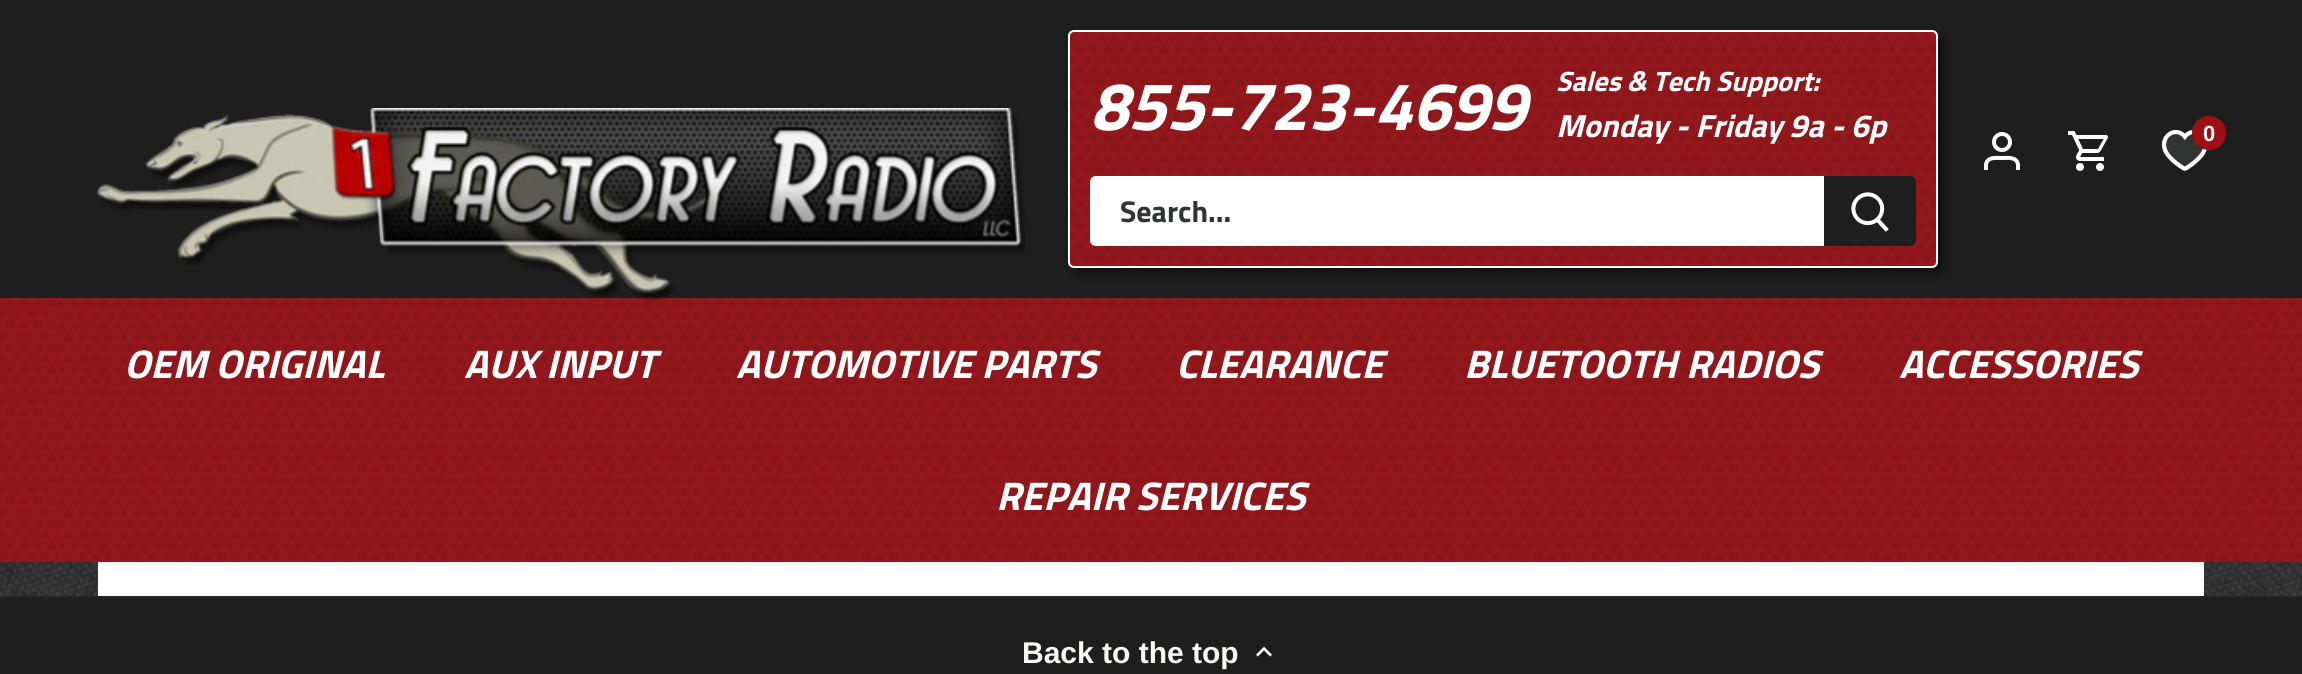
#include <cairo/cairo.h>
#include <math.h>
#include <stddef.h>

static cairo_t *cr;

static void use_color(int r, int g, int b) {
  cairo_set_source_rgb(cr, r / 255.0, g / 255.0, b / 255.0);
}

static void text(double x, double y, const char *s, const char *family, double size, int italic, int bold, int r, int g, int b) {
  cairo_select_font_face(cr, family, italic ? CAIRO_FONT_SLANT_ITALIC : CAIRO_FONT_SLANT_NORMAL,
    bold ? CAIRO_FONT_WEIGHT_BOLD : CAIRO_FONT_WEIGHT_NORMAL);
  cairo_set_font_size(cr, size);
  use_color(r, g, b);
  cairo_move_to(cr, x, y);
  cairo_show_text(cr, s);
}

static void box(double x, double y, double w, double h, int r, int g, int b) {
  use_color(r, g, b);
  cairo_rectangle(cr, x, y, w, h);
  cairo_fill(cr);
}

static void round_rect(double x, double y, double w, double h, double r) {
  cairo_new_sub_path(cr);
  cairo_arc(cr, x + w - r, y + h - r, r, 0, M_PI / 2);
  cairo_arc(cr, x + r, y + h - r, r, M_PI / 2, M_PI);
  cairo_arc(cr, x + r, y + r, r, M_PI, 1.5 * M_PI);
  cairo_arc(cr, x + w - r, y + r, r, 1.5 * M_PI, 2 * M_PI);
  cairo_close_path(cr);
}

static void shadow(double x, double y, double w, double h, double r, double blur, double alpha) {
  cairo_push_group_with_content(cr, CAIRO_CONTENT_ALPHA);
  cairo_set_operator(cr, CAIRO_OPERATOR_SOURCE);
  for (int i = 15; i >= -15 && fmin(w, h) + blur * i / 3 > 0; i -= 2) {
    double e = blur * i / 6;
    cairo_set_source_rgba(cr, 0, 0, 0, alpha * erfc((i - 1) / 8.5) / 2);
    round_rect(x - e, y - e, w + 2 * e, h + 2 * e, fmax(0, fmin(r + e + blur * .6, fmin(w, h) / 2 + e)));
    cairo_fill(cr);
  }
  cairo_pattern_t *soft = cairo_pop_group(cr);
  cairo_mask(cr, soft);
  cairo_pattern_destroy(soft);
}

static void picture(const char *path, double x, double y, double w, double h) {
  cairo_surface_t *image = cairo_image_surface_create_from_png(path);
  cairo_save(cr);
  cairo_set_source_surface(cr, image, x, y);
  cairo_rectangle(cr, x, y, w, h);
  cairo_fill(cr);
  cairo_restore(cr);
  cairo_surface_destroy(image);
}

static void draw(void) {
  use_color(255, 255, 255);
  cairo_paint(cr);
  picture("img_01.png", 0, 562, 2302, 34);
  box(98, 562, 2106, 34, 255, 255, 255);
  use_color(0, 0, 0);
  shadow(-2, -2, 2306, 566, 0, 3, 0.08);
  picture("img_02.png", 0, 298, 2302, 264);
  box(0, 0, 2302, 298, 30, 30, 30);
  picture("img_08.png", 58, 299, 2186, 263);
  picture("img_03.png", 97, 108, 929, 194);
  use_color(0, 0, 0);
  shadow(1074, 36, 870, 238, 6, 5, 0.5);
  picture("img_04.png", 1068, 30, 870, 238);
  round_rect(1069, 31, 868, 236, 5);
  use_color(255, 255, 255);
  cairo_stroke(cr);
  cairo_new_path(cr);
  cairo_move_to(cr, 1096, 176);
  cairo_line_to(cr, 1826, 176);
  cairo_line_to(cr, 1826, 246);
  cairo_line_to(cr, 1096, 246);
  cairo_curve_to(cr, 1092.5, 246, 1090, 243.5, 1090, 240);
  cairo_line_to(cr, 1090, 182);
  cairo_curve_to(cr, 1090, 178.5, 1092.5, 176, 1096, 176);
  cairo_close_path(cr);
  cairo_fill(cr);
  use_color(30, 30, 30);
  cairo_new_path(cr);
  cairo_move_to(cr, 1824, 176);
  cairo_line_to(cr, 1910, 176);
  cairo_curve_to(cr, 1913.5, 176, 1916, 178.5, 1916, 182);
  cairo_line_to(cr, 1916, 240);
  cairo_curve_to(cr, 1916, 243.5, 1913.5, 246, 1910, 246);
  cairo_line_to(cr, 1824, 246);
  cairo_close_path(cr);
  cairo_fill(cr);
  picture("img_05.png", 1851, 192, 38, 40);
  cairo_arc(cr, 2002, 142, 8, 0, 2 * M_PI);
  use_color(255, 255, 255);
  cairo_set_line_width(cr, 4);
  cairo_stroke(cr);
  cairo_new_path(cr);
  cairo_move_to(cr, 2018, 170);
  cairo_line_to(cr, 2018, 164.5);
  cairo_curve_to(cr, 2016.5, 156.5, 2008, 158, 2002, 158);
  cairo_curve_to(cr, 1996, 158, 1987.5, 156.5, 1986, 164.5);
  cairo_line_to(cr, 1986, 170);
  cairo_stroke(cr);
  picture("img_06.png", 2068, 131, 40, 40);
  picture("img_07.png", 2161, 129, 46, 42);
  use_color(157, 15, 18);
  cairo_arc(cr, 2209, 133, 17, 0, 2 * M_PI);
  cairo_fill(cr);
  box(0, 598, 2302, 76, 30, 30, 30);
  box(0, 596, 2302, 2, 33, 35, 38);
  picture("img_09.png", 1256, 646, 16, 11);
  text(1090, 130, "855-723-4699", "Titillium Web", 68, 1, 1, 255, 255, 255);
  text(1556, 91, "Sales & Tech Support:", "Titillium Web", 28, 1, 1, 255, 255, 255);
  text(1556, 137, "Monday - Friday 9a - 6p", "Titillium Web", 32, 1, 1, 255, 255, 255);
  text(1120, 222, "Search...", "Titillium Web", 30, 0, 1, 50, 51, 51);
  text(2203, 141, "0", "Liberation Sans", 22, 0, 1, 255, 255, 255);
  text(124, 378, "OEM ORIGINAL", "Titillium Web", 40, 1, 1, 255, 255, 255);
  text(464, 378, "AUX INPUT", "Titillium Web", 40, 1, 1, 255, 255, 255);
  text(736, 378, "AUTOMOTIVE PARTS", "Titillium Web", 40, 1, 1, 255, 255, 255);
  text(1176, 378, "CLEARANCE", "Titillium Web", 40, 1, 1, 255, 255, 255);
  text(1464, 378, "BLUETOOTH RADIOS", "Titillium Web", 40, 1, 1, 255, 255, 255);
  text(1899, 378, "ACCESSORIES", "Titillium Web", 40, 1, 1, 255, 255, 255);
  text(996, 510, "REPAIR SERVICES", "Titillium Web", 40, 1, 1, 255, 255, 255);
  text(1022, 663, "Back to the top", "Liberation Sans", 30, 0, 1, 250, 249, 246);
}

int main(void) {
  cairo_surface_t *surface = cairo_image_surface_create(CAIRO_FORMAT_RGB24, 2302, 674);
  cr = cairo_create(surface);
  cairo_font_options_t *options = cairo_font_options_create();
  cairo_font_options_set_hint_metrics(options, CAIRO_HINT_METRICS_OFF);
  cairo_font_options_set_hint_style(options, CAIRO_HINT_STYLE_NONE);
  cairo_set_font_options(cr, options);
  cairo_set_miter_limit(cr, 4);
  draw();
  cairo_surface_write_to_png(surface, "out.png");
  cairo_font_options_destroy(options);
  cairo_destroy(cr);
  cairo_surface_destroy(surface);
  return 0;
}
